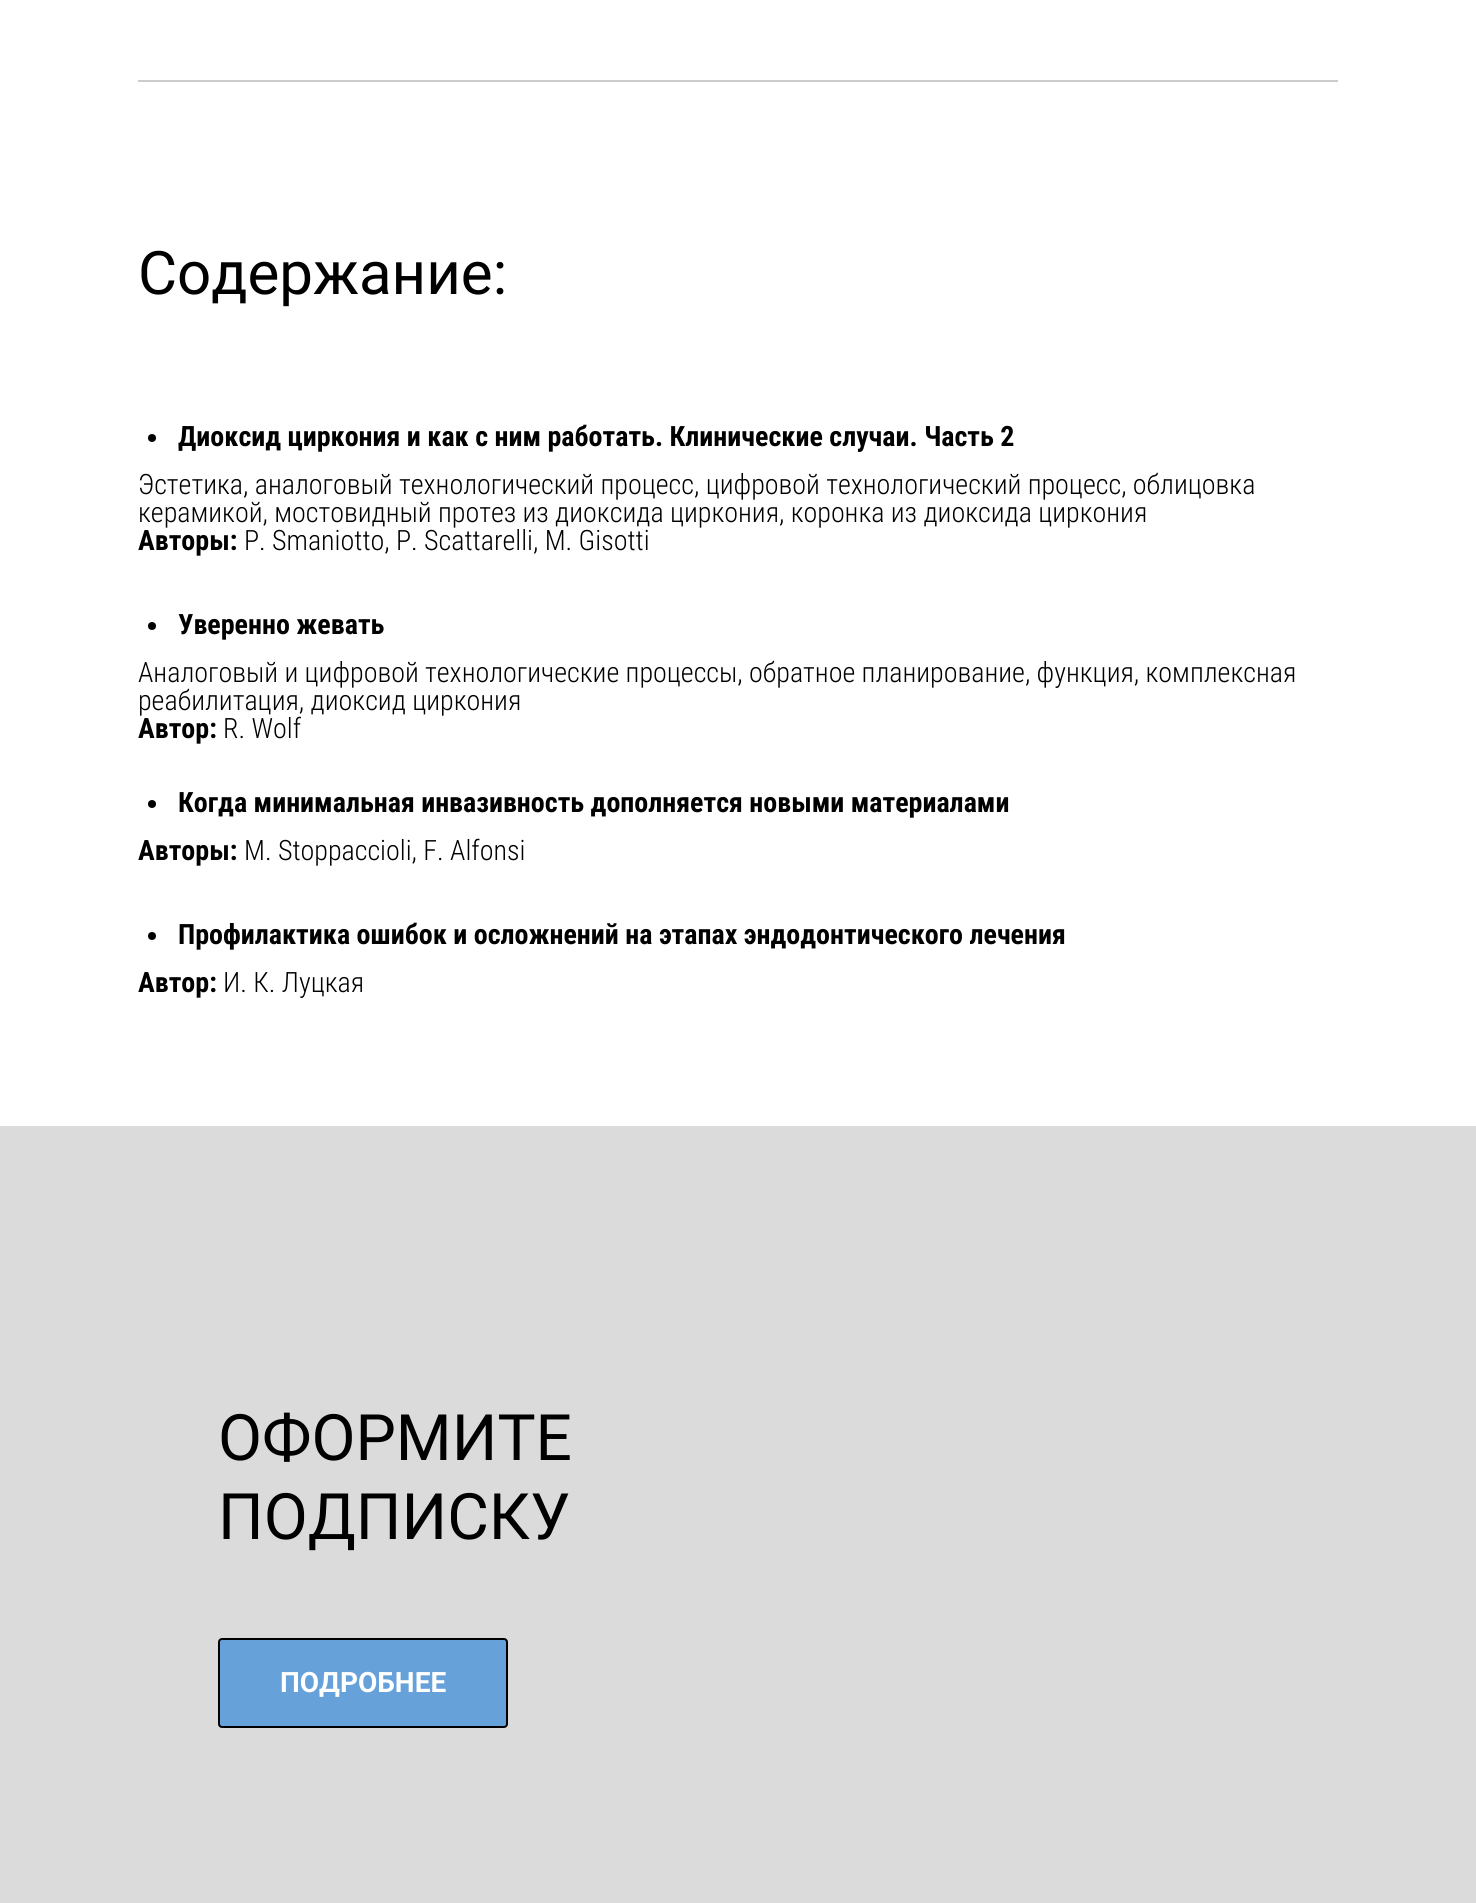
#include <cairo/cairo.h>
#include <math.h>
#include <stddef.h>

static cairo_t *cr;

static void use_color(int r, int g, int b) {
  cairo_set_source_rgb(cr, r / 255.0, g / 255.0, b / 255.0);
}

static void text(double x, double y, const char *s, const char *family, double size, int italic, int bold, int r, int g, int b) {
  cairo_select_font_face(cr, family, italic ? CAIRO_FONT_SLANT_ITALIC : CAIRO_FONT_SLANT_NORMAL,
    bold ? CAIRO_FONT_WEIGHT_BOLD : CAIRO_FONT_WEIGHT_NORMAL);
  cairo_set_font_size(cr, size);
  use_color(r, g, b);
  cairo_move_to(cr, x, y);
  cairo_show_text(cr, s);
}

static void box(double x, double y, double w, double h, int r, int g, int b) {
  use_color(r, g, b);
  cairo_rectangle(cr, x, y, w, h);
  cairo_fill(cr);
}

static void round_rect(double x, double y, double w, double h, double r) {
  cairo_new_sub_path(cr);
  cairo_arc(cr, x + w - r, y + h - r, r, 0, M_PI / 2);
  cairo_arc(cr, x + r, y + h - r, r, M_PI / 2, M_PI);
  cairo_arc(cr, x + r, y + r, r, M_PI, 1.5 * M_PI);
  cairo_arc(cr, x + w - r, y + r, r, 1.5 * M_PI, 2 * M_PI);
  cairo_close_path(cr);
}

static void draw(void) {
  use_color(255, 255, 255);
  cairo_paint(cr);
  box(138, 80, 1200, 2, 204, 204, 204);
  use_color(0, 0, 0);
  cairo_arc(cr, 152, 438, 4, 0, 2 * M_PI);
  cairo_fill(cr);
  cairo_arc(cr, 152, 626, 4, 0, 2 * M_PI);
  cairo_fill(cr);
  cairo_arc(cr, 152, 804, 4, 0, 2 * M_PI);
  cairo_fill(cr);
  cairo_arc(cr, 152, 936, 4, 0, 2 * M_PI);
  cairo_fill(cr);
  box(0, 1126, 1476, 777, 219, 219, 219);
  use_color(102, 161, 218);
  round_rect(219, 1639, 288, 88, 3);
  cairo_fill_preserve(cr);
  use_color(0, 0, 0);
  cairo_stroke(cr);
  text(138, 294, "Содержание:", "Roboto", 60, 0, 0, 0, 0, 0);
  text(178, 446, "Диоксид циркония и как с ним работать. Клинические случаи. Часть 2", "Roboto Condensed", 28, 0, 1, 0, 0, 0);
  text(138, 494, "Эстетика, аналоговый технологический процесс, цифровой технологический процесс, облицовка", "Roboto Condensed Light", 28, 0, 0, 0, 0, 0);
  text(138, 522, "керамикой, мостовидный протез из диоксида циркония, коронка из диоксида циркония", "Roboto Condensed Light", 28, 0, 0, 0, 0, 0);
  text(138, 550, "Авторы:", "Roboto Condensed", 28, 0, 1, 0, 0, 0);
  text(244, 550, "P. Smaniotto, P. Scattarelli, M. Gisotti", "Roboto Condensed Light", 28, 0, 0, 0, 0, 0);
  text(178, 634, "Уверенно жевать", "Roboto Condensed", 28, 0, 1, 0, 0, 0);
  text(138, 682, "Аналоговый и цифровой технологические процессы, обратное планирование, функция, комплексная", "Roboto Condensed Light", 28, 0, 0, 0, 0, 0);
  text(138, 710, "реабилитация, диоксид циркония", "Roboto Condensed Light", 28, 0, 0, 0, 0, 0);
  text(138, 738, "Автор:", "Roboto Condensed", 28, 0, 1, 0, 0, 0);
  text(223, 738, "R. Wolf", "Roboto Condensed Light", 28, 0, 0, 0, 0, 0);
  text(178, 812, "Когда минимальная инвазивность дополняется новыми материалами", "Roboto Condensed", 28, 0, 1, 0, 0, 0);
  text(138, 860, "Авторы:", "Roboto Condensed", 28, 0, 1, 0, 0, 0);
  text(244, 860, "M. Stoppaccioli, F. Alfonsi", "Roboto Condensed Light", 28, 0, 0, 0, 0, 0);
  text(178, 944, "Профилактика ошибок и осложнений на этапах эндодонтического лечения", "Roboto Condensed", 28, 0, 1, 0, 0, 0);
  text(138, 992, "Автор:", "Roboto Condensed", 28, 0, 1, 0, 0, 0);
  text(223, 992, "И. К. Луцкая", "Roboto Condensed Light", 28, 0, 0, 0, 0, 0);
  text(218, 1460, "ОФОРМИТЕ", "Roboto", 64, 0, 0, 0, 0, 0);
  text(218, 1539, "ПОДПИСКУ", "Roboto", 64, 0, 0, 0, 0, 0);
  text(280, 1692, "ПОДРОБНЕЕ", "Roboto", 28, 0, 1, 255, 255, 255);
}

int main(void) {
  cairo_surface_t *surface = cairo_image_surface_create(CAIRO_FORMAT_RGB24, 1476, 1903);
  cr = cairo_create(surface);
  cairo_font_options_t *options = cairo_font_options_create();
  cairo_font_options_set_hint_metrics(options, CAIRO_HINT_METRICS_OFF);
  cairo_font_options_set_hint_style(options, CAIRO_HINT_STYLE_NONE);
  cairo_set_font_options(cr, options);
  cairo_set_miter_limit(cr, 4);
  draw();
  cairo_surface_write_to_png(surface, "out.png");
  cairo_font_options_destroy(options);
  cairo_destroy(cr);
  cairo_surface_destroy(surface);
  return 0;
}
